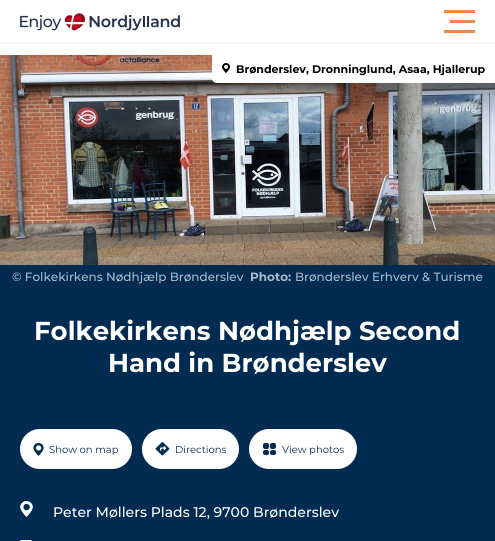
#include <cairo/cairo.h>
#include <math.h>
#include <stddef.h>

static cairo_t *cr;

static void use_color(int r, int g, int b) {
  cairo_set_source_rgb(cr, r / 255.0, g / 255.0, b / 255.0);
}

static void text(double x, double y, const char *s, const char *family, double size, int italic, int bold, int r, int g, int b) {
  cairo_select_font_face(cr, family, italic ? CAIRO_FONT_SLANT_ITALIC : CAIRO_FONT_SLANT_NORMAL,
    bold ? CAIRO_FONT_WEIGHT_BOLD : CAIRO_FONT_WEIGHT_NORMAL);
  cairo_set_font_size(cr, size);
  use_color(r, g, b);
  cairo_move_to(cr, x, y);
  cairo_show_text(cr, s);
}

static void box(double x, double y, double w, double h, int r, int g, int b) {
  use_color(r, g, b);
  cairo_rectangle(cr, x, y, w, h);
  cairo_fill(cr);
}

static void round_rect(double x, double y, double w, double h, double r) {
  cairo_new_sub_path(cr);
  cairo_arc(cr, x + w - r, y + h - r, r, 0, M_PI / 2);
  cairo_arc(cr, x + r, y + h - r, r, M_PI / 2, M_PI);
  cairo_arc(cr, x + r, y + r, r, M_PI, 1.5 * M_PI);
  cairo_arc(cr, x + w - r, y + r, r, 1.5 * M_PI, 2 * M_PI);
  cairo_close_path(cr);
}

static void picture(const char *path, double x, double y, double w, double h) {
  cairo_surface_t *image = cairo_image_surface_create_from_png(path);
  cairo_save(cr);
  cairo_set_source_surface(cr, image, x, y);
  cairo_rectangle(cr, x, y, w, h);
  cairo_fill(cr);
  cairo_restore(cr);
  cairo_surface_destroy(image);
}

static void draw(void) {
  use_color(255, 255, 255);
  cairo_paint(cr);
  box(0, 43, 495, 1, 240, 241, 243);
  picture("img_01.png", 20, 13, 160, 18);
  box(444, 10, 31, 3, 241, 135, 68);
  box(450, 20, 25, 3, 241, 135, 68);
  box(444, 30, 31, 3, 241, 135, 68);
  picture("img_02.png", 0, 55, 495, 210);
  use_color(255, 255, 255);
  cairo_new_path(cr);
  cairo_move_to(cr, 212, 55);
  cairo_line_to(cr, 495, 55);
  cairo_line_to(cr, 495, 83);
  cairo_line_to(cr, 217, 83);
  cairo_curve_to(cr, 214, 83, 212, 81, 212, 78);
  cairo_close_path(cr);
  cairo_fill(cr);
  picture("img_03.png", 222, 63, 8, 10);
  box(0, 265, 495, 276, 2, 43, 82);
  use_color(255, 255, 255);
  round_rect(20, 429, 112, 40, 20);
  cairo_fill(cr);
  picture("img_04.png", 33, 443, 11, 13);
  round_rect(142, 429, 97, 40, 20);
  cairo_fill(cr);
  picture("img_05.png", 155, 442, 15, 14);
  round_rect(249, 429, 108, 40, 20);
  cairo_fill(cr);
  picture("img_06.png", 263, 443, 13, 12);
  picture("img_07.png", 20, 501, 13, 16);
  picture("img_08.png", 20, 540, 12, 1);
  text(236, 73, "Brønderslev, Dronninglund, Asaa, Hjallerup", "Montserrat", 11, 0, 1, 0, 0, 0);
  text(12, 281, "© Folkekirkens Nødhjælp Brønderslev", "Montserrat Medium", 12, 0, 0, 170, 188, 205);
  text(250, 281, "Photo:", "Montserrat", 12, 0, 1, 170, 188, 205);
  text(295, 281, "Brønderslev Erhverv & Turisme", "Montserrat Medium", 12, 0, 0, 170, 188, 205);
  text(34, 340, "Folkekirkens Nødhjælp Second", "Montserrat", 26, 0, 1, 255, 255, 255);
  text(108, 372, "Hand in Brønderslev", "Montserrat", 26, 0, 1, 255, 255, 255);
  text(49, 453, "Show on map", "Montserrat", 10, 0, 0, 2, 43, 82);
  text(175, 453, "Directions", "Montserrat", 10, 0, 0, 2, 43, 82);
  text(282, 453, "View photos", "Montserrat", 10, 0, 0, 2, 43, 82);
  text(53, 517, "Peter Møllers Plads 12, 9700 Brønderslev", "Montserrat Medium", 14, 0, 0, 255, 255, 255);
}

int main(void) {
  cairo_surface_t *surface = cairo_image_surface_create(CAIRO_FORMAT_RGB24, 495, 541);
  cr = cairo_create(surface);
  cairo_font_options_t *options = cairo_font_options_create();
  cairo_font_options_set_hint_metrics(options, CAIRO_HINT_METRICS_OFF);
  cairo_font_options_set_hint_style(options, CAIRO_HINT_STYLE_NONE);
  cairo_set_font_options(cr, options);
  cairo_set_miter_limit(cr, 4);
  draw();
  cairo_surface_write_to_png(surface, "out.png");
  cairo_font_options_destroy(options);
  cairo_destroy(cr);
  cairo_surface_destroy(surface);
  return 0;
}
